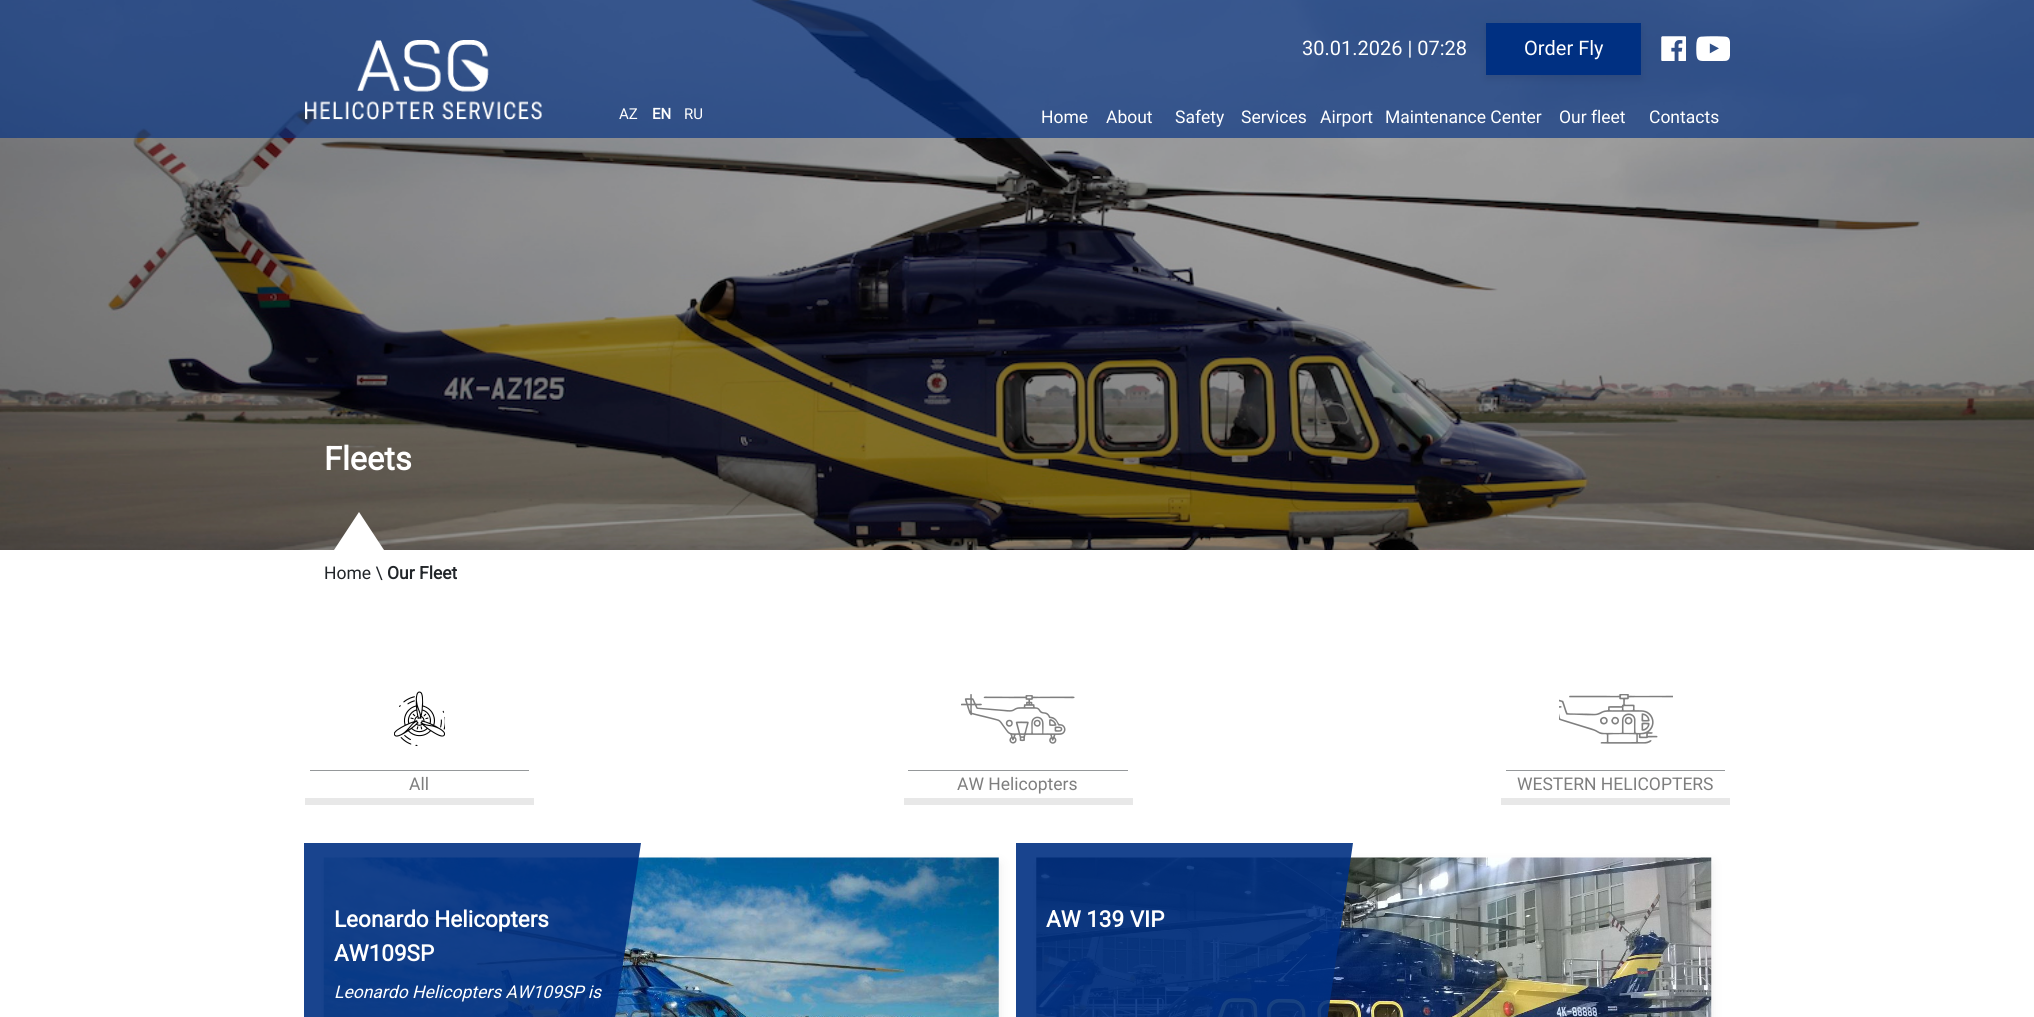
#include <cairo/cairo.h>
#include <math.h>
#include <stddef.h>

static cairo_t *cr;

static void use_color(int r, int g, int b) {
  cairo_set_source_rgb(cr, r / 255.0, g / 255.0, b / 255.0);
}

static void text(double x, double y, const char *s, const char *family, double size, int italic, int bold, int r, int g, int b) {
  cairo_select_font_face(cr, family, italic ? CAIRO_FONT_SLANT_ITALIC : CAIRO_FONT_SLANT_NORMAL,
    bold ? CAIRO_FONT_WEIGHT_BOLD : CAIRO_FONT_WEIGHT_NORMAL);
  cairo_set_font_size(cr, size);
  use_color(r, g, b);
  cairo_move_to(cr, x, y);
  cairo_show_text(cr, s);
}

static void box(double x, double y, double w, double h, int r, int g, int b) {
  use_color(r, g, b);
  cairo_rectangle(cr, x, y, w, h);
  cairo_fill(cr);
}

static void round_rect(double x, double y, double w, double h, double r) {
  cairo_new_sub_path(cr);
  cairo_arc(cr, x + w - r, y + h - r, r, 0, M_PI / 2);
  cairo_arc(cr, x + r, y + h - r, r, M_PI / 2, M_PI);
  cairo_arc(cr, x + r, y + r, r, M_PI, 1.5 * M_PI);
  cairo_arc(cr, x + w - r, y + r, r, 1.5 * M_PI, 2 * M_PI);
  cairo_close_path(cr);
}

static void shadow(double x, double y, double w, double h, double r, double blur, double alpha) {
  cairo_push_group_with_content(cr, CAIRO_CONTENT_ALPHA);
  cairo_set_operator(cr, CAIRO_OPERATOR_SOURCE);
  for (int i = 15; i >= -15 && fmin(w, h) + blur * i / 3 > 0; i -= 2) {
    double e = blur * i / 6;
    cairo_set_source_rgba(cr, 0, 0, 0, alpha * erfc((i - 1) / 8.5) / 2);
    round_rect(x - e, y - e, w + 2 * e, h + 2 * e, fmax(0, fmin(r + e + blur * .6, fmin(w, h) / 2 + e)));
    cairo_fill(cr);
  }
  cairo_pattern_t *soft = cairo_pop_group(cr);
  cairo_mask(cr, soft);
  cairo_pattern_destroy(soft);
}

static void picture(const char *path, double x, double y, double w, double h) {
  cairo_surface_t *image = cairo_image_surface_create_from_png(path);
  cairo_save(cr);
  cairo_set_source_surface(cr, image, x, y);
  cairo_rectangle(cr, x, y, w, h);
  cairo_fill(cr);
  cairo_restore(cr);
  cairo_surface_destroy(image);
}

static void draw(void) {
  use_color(255, 255, 255);
  cairo_paint(cr);
  picture("img_01.png", 0, 0, 2034, 550);
  cairo_set_source_rgba(cr, 0, 0.188, 0.51, 0.66);
  cairo_rectangle(cr, 0, 0, 2034, 138);
  cairo_fill(cr);
  picture("img_02.png", 305, 40, 237, 80);
  use_color(0, 0, 0);
  shadow(1486, 26, 155, 53, 0, 4, 0.09);
  box(1486, 23, 155, 52, 0, 48, 130);
  picture("img_03.png", 1661, 36, 25, 25);
  picture("img_04.png", 1696, 36, 34, 25);
  use_color(255, 255, 255);
  cairo_new_path(cr);
  cairo_move_to(cr, 384, 550);
  cairo_line_to(cr, 334, 550);
  cairo_line_to(cr, 359, 512);
  cairo_close_path(cr);
  cairo_fill(cr);
  use_color(232, 232, 232);
  cairo_new_path(cr);
  cairo_move_to(cr, 305, 798);
  cairo_line_to(cr, 305, 805);
  cairo_line_to(cr, 534, 805);
  cairo_line_to(cr, 534, 674);
  cairo_line_to(cr, 534, 798);
  cairo_close_path(cr);
  cairo_fill(cr);
  picture("img_05.png", 394, 691, 51, 55);
  box(310, 770, 219, 1, 149, 152, 154);
  use_color(232, 232, 232);
  cairo_new_path(cr);
  cairo_move_to(cr, 904, 798);
  cairo_line_to(cr, 904, 805);
  cairo_line_to(cr, 1133, 805);
  cairo_line_to(cr, 1133, 674);
  cairo_line_to(cr, 1132, 674);
  cairo_line_to(cr, 1132, 798);
  cairo_close_path(cr);
  cairo_fill(cr);
  box(1132, 674, 1, 124, 255, 255, 255);
  picture("img_06.png", 961, 694, 114, 50);
  box(908, 770, 220, 1, 149, 152, 154);
  use_color(232, 232, 232);
  cairo_new_path(cr);
  cairo_move_to(cr, 1501, 674);
  cairo_line_to(cr, 1501, 805);
  cairo_line_to(cr, 1730, 805);
  cairo_line_to(cr, 1730, 798);
  cairo_line_to(cr, 1501, 798);
  cairo_close_path(cr);
  cairo_fill(cr);
  picture("img_07.png", 1559, 694, 114, 50);
  box(1506, 770, 219, 1, 149, 152, 154);
  use_color(0, 0, 0);
  shadow(324, 864, 675, 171, 0, 6, 0.09);
  picture("img_08.png", 323, 857, 676, 160);
  cairo_set_source_rgba(cr, 0, 0.188, 0.51, 0.9);
  cairo_new_path(cr);
  cairo_move_to(cr, 304, 843);
  cairo_line_to(cr, 641, 843);
  cairo_line_to(cr, 590, 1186);
  cairo_line_to(cr, 304, 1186);
  cairo_close_path(cr);
  cairo_fill(cr);
  use_color(0, 0, 0);
  shadow(1036, 864, 675, 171, 0, 6, 0.09);
  picture("img_09.png", 1036, 857, 676, 160);
  cairo_set_source_rgba(cr, 0, 0.188, 0.51, 0.9);
  cairo_new_path(cr);
  cairo_move_to(cr, 1353, 843);
  cairo_line_to(cr, 1303, 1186);
  cairo_line_to(cr, 1016, 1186);
  cairo_line_to(cr, 1016, 843);
  cairo_close_path(cr);
  cairo_fill(cr);
  text(619, 119, "AZ", "Roboto", 15, 0, 0, 255, 255, 255);
  text(652, 119, "EN", "Roboto", 15, 0, 1, 255, 255, 255);
  text(684, 119, "RU", "Roboto", 15, 0, 0, 255, 255, 255);
  text(1302, 55, "30.01.2026 | 07:28", "Roboto", 20, 0, 0, 255, 255, 255);
  text(1524, 55, "Order Fly", "Roboto", 20, 0, 0, 255, 255, 255);
  text(1041, 123, "Home", "Roboto", 17.5, 0, 0, 255, 255, 255);
  text(1106, 123, "About", "Roboto", 17.5, 0, 0, 255, 255, 255);
  text(1175, 123, "Safety", "Roboto", 17.5, 0, 0, 255, 255, 255);
  text(1241, 123, "Services", "Roboto", 17.5, 0, 0, 255, 255, 255);
  text(1320, 123, "Airport", "Roboto", 17.5, 0, 0, 255, 255, 255);
  text(1385, 123, "Maintenance Center", "Roboto", 17.5, 0, 0, 255, 255, 255);
  text(1559, 123, "Our fleet", "Roboto", 17.5, 0, 0, 255, 255, 255);
  text(1649, 123, "Contacts", "Roboto", 17.5, 0, 0, 255, 255, 255);
  text(324, 470, "Fleets", "Roboto", 32.5, 0, 1, 255, 255, 255);
  text(324, 579, "Home \\", "Roboto", 17.5, 0, 0, 33, 37, 41);
  text(387, 579, "Our Fleet", "Roboto", 17.5, 0, 1, 33, 37, 41);
  text(409, 790, "All", "Roboto", 17.5, 0, 0, 126, 126, 126);
  text(957, 790, "AW Helicopters", "Roboto", 17.5, 0, 0, 126, 126, 126);
  text(1517, 790, "WESTERN HELICOPTERS", "Roboto", 17.5, 0, 0, 126, 126, 126);
  text(334, 927, "Leonardo Helicopters", "Roboto", 22.5, 0, 1, 255, 255, 255);
  text(334, 961, "AW109SP", "Roboto", 22.5, 0, 1, 255, 255, 255);
  text(334, 998, "Leonardo Helicopters AW109SP is", "Roboto", 17.5, 1, 0, 255, 255, 255);
  text(1046, 927, "AW 139 VIP", "Roboto", 22.5, 0, 1, 255, 255, 255);
}

int main(void) {
  cairo_surface_t *surface = cairo_image_surface_create(CAIRO_FORMAT_RGB24, 2034, 1017);
  cr = cairo_create(surface);
  cairo_font_options_t *options = cairo_font_options_create();
  cairo_font_options_set_hint_metrics(options, CAIRO_HINT_METRICS_OFF);
  cairo_font_options_set_hint_style(options, CAIRO_HINT_STYLE_NONE);
  cairo_set_font_options(cr, options);
  cairo_set_miter_limit(cr, 4);
  draw();
  cairo_surface_write_to_png(surface, "out.png");
  cairo_font_options_destroy(options);
  cairo_destroy(cr);
  cairo_surface_destroy(surface);
  return 0;
}
